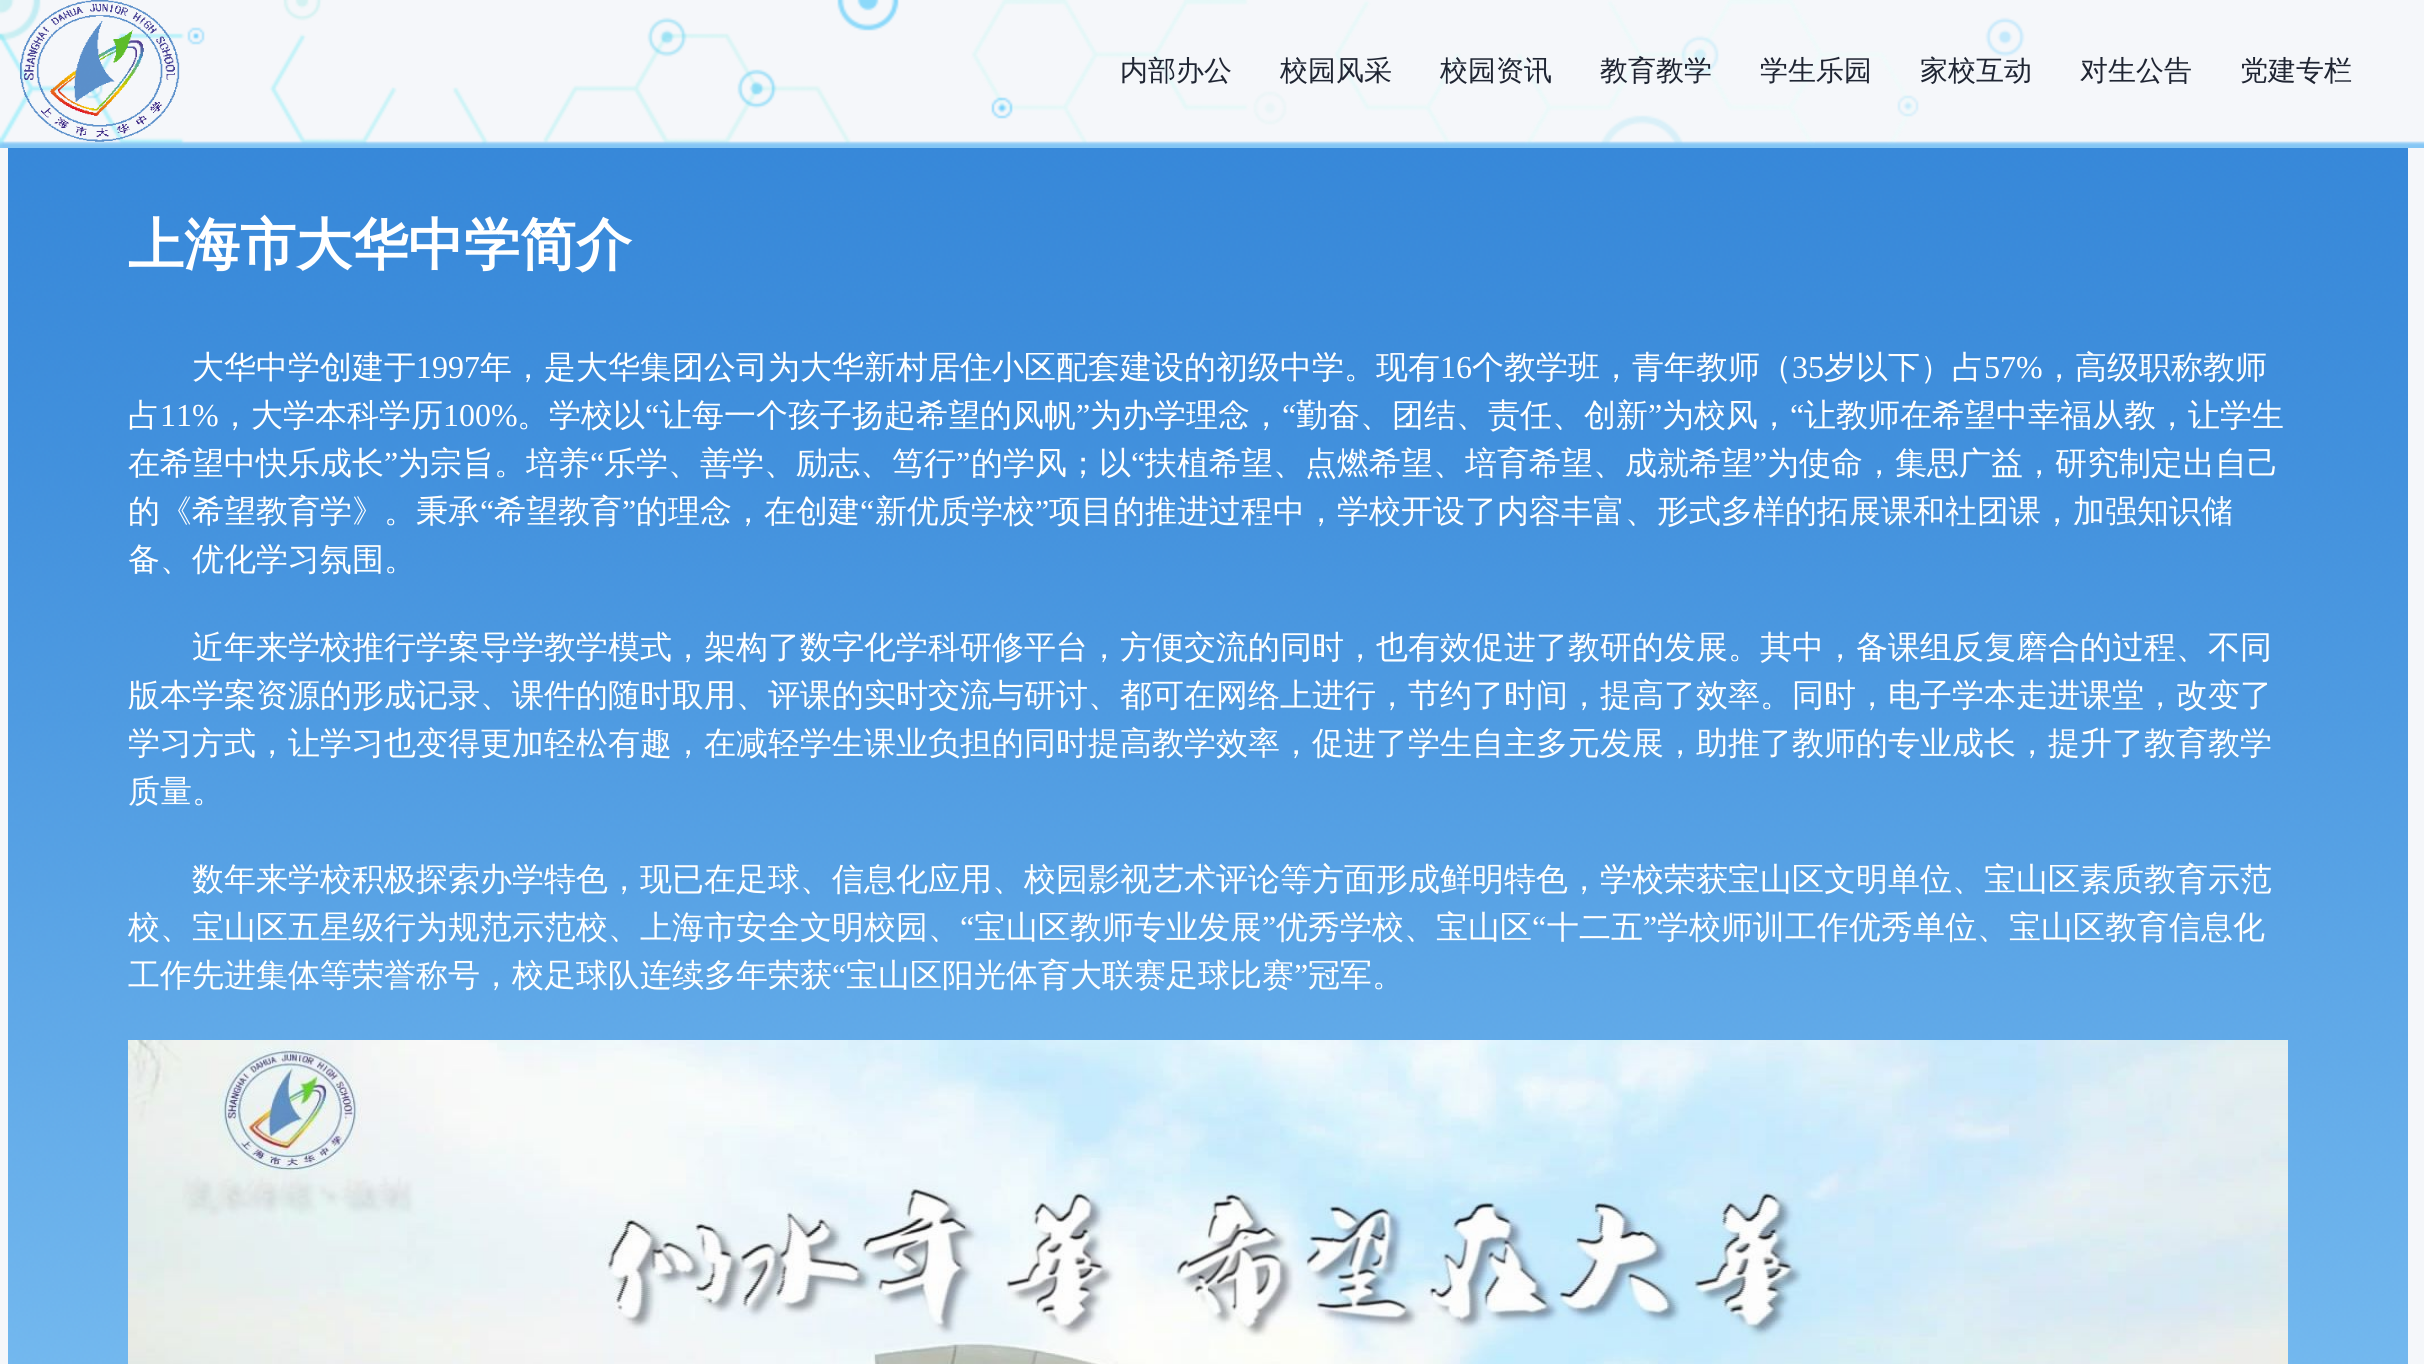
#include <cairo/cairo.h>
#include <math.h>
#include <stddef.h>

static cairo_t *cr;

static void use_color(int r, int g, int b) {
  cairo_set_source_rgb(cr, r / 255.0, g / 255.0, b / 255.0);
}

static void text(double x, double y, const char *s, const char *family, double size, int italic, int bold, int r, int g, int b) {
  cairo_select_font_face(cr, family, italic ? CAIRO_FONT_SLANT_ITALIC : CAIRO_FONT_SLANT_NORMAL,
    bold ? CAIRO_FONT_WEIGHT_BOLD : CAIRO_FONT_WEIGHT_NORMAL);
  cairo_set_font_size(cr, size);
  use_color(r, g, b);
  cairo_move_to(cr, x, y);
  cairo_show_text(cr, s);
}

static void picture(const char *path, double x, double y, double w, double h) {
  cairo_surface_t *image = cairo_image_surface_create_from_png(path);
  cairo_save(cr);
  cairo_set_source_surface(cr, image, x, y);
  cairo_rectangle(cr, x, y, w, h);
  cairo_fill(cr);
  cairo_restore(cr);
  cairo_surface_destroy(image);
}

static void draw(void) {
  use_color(245, 247, 250);
  cairo_paint(cr);
  picture("img_01.png", 0, 0, 2424, 148);
  picture("img_02.png", 20, 0, 160, 142);
  picture("img_03.png", 8, 148, 2400, 1216);
  picture("img_04.png", 128, 1040, 2160, 324);
  text(1120, 80, "内部办公", "WenQuanYi Zen Hei Medium", 28, 0, 0, 31, 37, 51);
  text(1280, 80, "校园风采", "WenQuanYi Zen Hei Medium", 28, 0, 0, 31, 37, 51);
  text(1440, 80, "校园资讯", "WenQuanYi Zen Hei Medium", 28, 0, 0, 31, 37, 51);
  text(1600, 80, "教育教学", "WenQuanYi Zen Hei Medium", 28, 0, 0, 31, 37, 51);
  text(1760, 80, "学生乐园", "WenQuanYi Zen Hei Medium", 28, 0, 0, 31, 37, 51);
  text(1920, 80, "家校互动", "WenQuanYi Zen Hei Medium", 28, 0, 0, 31, 37, 51);
  text(2080, 80, "对生公告", "WenQuanYi Zen Hei Medium", 28, 0, 0, 31, 37, 51);
  text(2240, 80, "党建专栏", "WenQuanYi Zen Hei Medium", 28, 0, 0, 31, 37, 51);
  text(128, 264, "上海市大华中学简介", "WenQuanYi Zen Hei", 56, 0, 1, 255, 255, 255);
  text(192, 378, "大华中学创建于", "WenQuanYi Zen Hei Medium", 32, 0, 0, 255, 255, 255);
  text(416, 378, "1997", "Liberation Serif", 32, 0, 0, 255, 255, 255);
  text(480, 378, "年，是大华集团公司为大华新村居住小区配套建设的初级中学。现有", "WenQuanYi Zen Hei Medium", 32, 0, 0, 255, 255, 255);
  text(1440, 378, "16", "Liberation Serif", 32, 0, 0, 255, 255, 255);
  text(1472, 378, "个教学班，青年教师（", "WenQuanYi Zen Hei Medium", 32, 0, 0, 255, 255, 255);
  text(1792, 378, "35", "Liberation Serif", 32, 0, 0, 255, 255, 255);
  text(1824, 378, "岁以下）占", "WenQuanYi Zen Hei Medium", 32, 0, 0, 255, 255, 255);
  text(1984, 378, "57%", "Liberation Serif", 32, 0, 0, 255, 255, 255);
  text(2043, 378, "，高级职称教师", "WenQuanYi Zen Hei Medium", 32, 0, 0, 255, 255, 255);
  text(128, 426, "占", "WenQuanYi Zen Hei Medium", 32, 0, 0, 255, 255, 255);
  text(160, 426, "11%", "Liberation Serif", 32, 0, 0, 255, 255, 255);
  text(219, 426, "，大学本科学历", "WenQuanYi Zen Hei Medium", 32, 0, 0, 255, 255, 255);
  text(443, 426, "100%", "Liberation Serif", 32, 0, 0, 255, 255, 255);
  text(517, 426, "。学校以", "WenQuanYi Zen Hei Medium", 32, 0, 0, 255, 255, 255);
  text(645, 426, "“", "Liberation Serif", 32, 0, 0, 255, 255, 255);
  text(660, 426, "让每一个孩子扬起希望的风帆", "WenQuanYi Zen Hei Medium", 32, 0, 0, 255, 255, 255);
  text(1076, 426, "”", "Liberation Serif", 32, 0, 0, 255, 255, 255);
  text(1090, 426, "为办学理念，", "WenQuanYi Zen Hei Medium", 32, 0, 0, 255, 255, 255);
  text(1282, 426, "“", "Liberation Serif", 32, 0, 0, 255, 255, 255);
  text(1296, 426, "勤奋、团结、责任、创新", "WenQuanYi Zen Hei Medium", 32, 0, 0, 255, 255, 255);
  text(1648, 426, "”", "Liberation Serif", 32, 0, 0, 255, 255, 255);
  text(1662, 426, "为校风，", "WenQuanYi Zen Hei Medium", 32, 0, 0, 255, 255, 255);
  text(1790, 426, "“", "Liberation Serif", 32, 0, 0, 255, 255, 255);
  text(1804, 426, "让教师在希望中幸福从教，让学生", "WenQuanYi Zen Hei Medium", 32, 0, 0, 255, 255, 255);
  text(128, 474, "在希望中快乐成长", "WenQuanYi Zen Hei Medium", 32, 0, 0, 255, 255, 255);
  text(384, 474, "”", "Liberation Serif", 32, 0, 0, 255, 255, 255);
  text(398, 474, "为宗旨。培养", "WenQuanYi Zen Hei Medium", 32, 0, 0, 255, 255, 255);
  text(590, 474, "“", "Liberation Serif", 32, 0, 0, 255, 255, 255);
  text(604, 474, "乐学、善学、励志、笃行", "WenQuanYi Zen Hei Medium", 32, 0, 0, 255, 255, 255);
  text(956, 474, "”", "Liberation Serif", 32, 0, 0, 255, 255, 255);
  text(971, 474, "的学风；以", "WenQuanYi Zen Hei Medium", 32, 0, 0, 255, 255, 255);
  text(1131, 474, "“", "Liberation Serif", 32, 0, 0, 255, 255, 255);
  text(1145, 474, "扶植希望、点燃希望、培育希望、成就希望", "WenQuanYi Zen Hei Medium", 32, 0, 0, 255, 255, 255);
  text(1753, 474, "”", "Liberation Serif", 32, 0, 0, 255, 255, 255);
  text(1767, 474, "为使命，集思广益，研究制定出自己", "WenQuanYi Zen Hei Medium", 32, 0, 0, 255, 255, 255);
  text(128, 522, "的《希望教育学》。秉承", "WenQuanYi Zen Hei Medium", 32, 0, 0, 255, 255, 255);
  text(480, 522, "“", "Liberation Serif", 32, 0, 0, 255, 255, 255);
  text(494, 522, "希望教育", "WenQuanYi Zen Hei Medium", 32, 0, 0, 255, 255, 255);
  text(622, 522, "”", "Liberation Serif", 32, 0, 0, 255, 255, 255);
  text(636, 522, "的理念，在创建", "WenQuanYi Zen Hei Medium", 32, 0, 0, 255, 255, 255);
  text(860, 522, "“", "Liberation Serif", 32, 0, 0, 255, 255, 255);
  text(875, 522, "新优质学校", "WenQuanYi Zen Hei Medium", 32, 0, 0, 255, 255, 255);
  text(1035, 522, "”", "Liberation Serif", 32, 0, 0, 255, 255, 255);
  text(1049, 522, "项目的推进过程中，学校开设了内容丰富、形式多样的拓展课和社团课，加强知识储", "WenQuanYi Zen Hei Medium", 32, 0, 0, 255, 255, 255);
  text(128, 570, "备、优化学习氛围。", "WenQuanYi Zen Hei Medium", 32, 0, 0, 255, 255, 255);
  text(192, 658, "近年来学校推行学案导学教学模式，架构了数字化学科研修平台，方便交流的同时，也有效促进了教研的发展。其中，备课组反复磨合的过程、不同", "WenQuanYi Zen Hei Medium", 32, 0, 0, 255, 255, 255);
  text(128, 706, "版本学案资源的形成记录、课件的随时取用、评课的实时交流与研讨、都可在网络上进行，节约了时间，提高了效率。同时，电子学本走进课堂，改变了", "WenQuanYi Zen Hei Medium", 32, 0, 0, 255, 255, 255);
  text(128, 754, "学习方式，让学习也变得更加轻松有趣，在减轻学生课业负担的同时提高教学效率，促进了学生自主多元发展，助推了教师的专业成长，提升了教育教学", "WenQuanYi Zen Hei Medium", 32, 0, 0, 255, 255, 255);
  text(128, 802, "质量。", "WenQuanYi Zen Hei Medium", 32, 0, 0, 255, 255, 255);
  text(192, 890, "数年来学校积极探索办学特色，现已在足球、信息化应用、校园影视艺术评论等方面形成鲜明特色，学校荣获宝山区文明单位、宝山区素质教育示范", "WenQuanYi Zen Hei Medium", 32, 0, 0, 255, 255, 255);
  text(128, 938, "校、宝山区五星级行为规范示范校、上海市安全文明校园、", "WenQuanYi Zen Hei Medium", 32, 0, 0, 255, 255, 255);
  text(960, 938, "“", "Liberation Serif", 32, 0, 0, 255, 255, 255);
  text(974, 938, "宝山区教师专业发展", "WenQuanYi Zen Hei Medium", 32, 0, 0, 255, 255, 255);
  text(1262, 938, "”", "Liberation Serif", 32, 0, 0, 255, 255, 255);
  text(1276, 938, "优秀学校、宝山区", "WenQuanYi Zen Hei Medium", 32, 0, 0, 255, 255, 255);
  text(1532, 938, "“", "Liberation Serif", 32, 0, 0, 255, 255, 255);
  text(1547, 938, "十二五", "WenQuanYi Zen Hei Medium", 32, 0, 0, 255, 255, 255);
  text(1643, 938, "”", "Liberation Serif", 32, 0, 0, 255, 255, 255);
  text(1657, 938, "学校师训工作优秀单位、宝山区教育信息化", "WenQuanYi Zen Hei Medium", 32, 0, 0, 255, 255, 255);
  text(128, 986, "工作先进集体等荣誉称号，校足球队连续多年荣获", "WenQuanYi Zen Hei Medium", 32, 0, 0, 255, 255, 255);
  text(832, 986, "“", "Liberation Serif", 32, 0, 0, 255, 255, 255);
  text(846, 986, "宝山区阳光体育大联赛足球比赛", "WenQuanYi Zen Hei Medium", 32, 0, 0, 255, 255, 255);
  text(1294, 986, "”", "Liberation Serif", 32, 0, 0, 255, 255, 255);
  text(1308, 986, "冠军。", "WenQuanYi Zen Hei Medium", 32, 0, 0, 255, 255, 255);
}

int main(void) {
  cairo_surface_t *surface = cairo_image_surface_create(CAIRO_FORMAT_RGB24, 2424, 1364);
  cr = cairo_create(surface);
  cairo_font_options_t *options = cairo_font_options_create();
  cairo_font_options_set_hint_metrics(options, CAIRO_HINT_METRICS_OFF);
  cairo_font_options_set_hint_style(options, CAIRO_HINT_STYLE_NONE);
  cairo_set_font_options(cr, options);
  cairo_set_miter_limit(cr, 4);
  draw();
  cairo_surface_write_to_png(surface, "out.png");
  cairo_font_options_destroy(options);
  cairo_destroy(cr);
  cairo_surface_destroy(surface);
  return 0;
}
